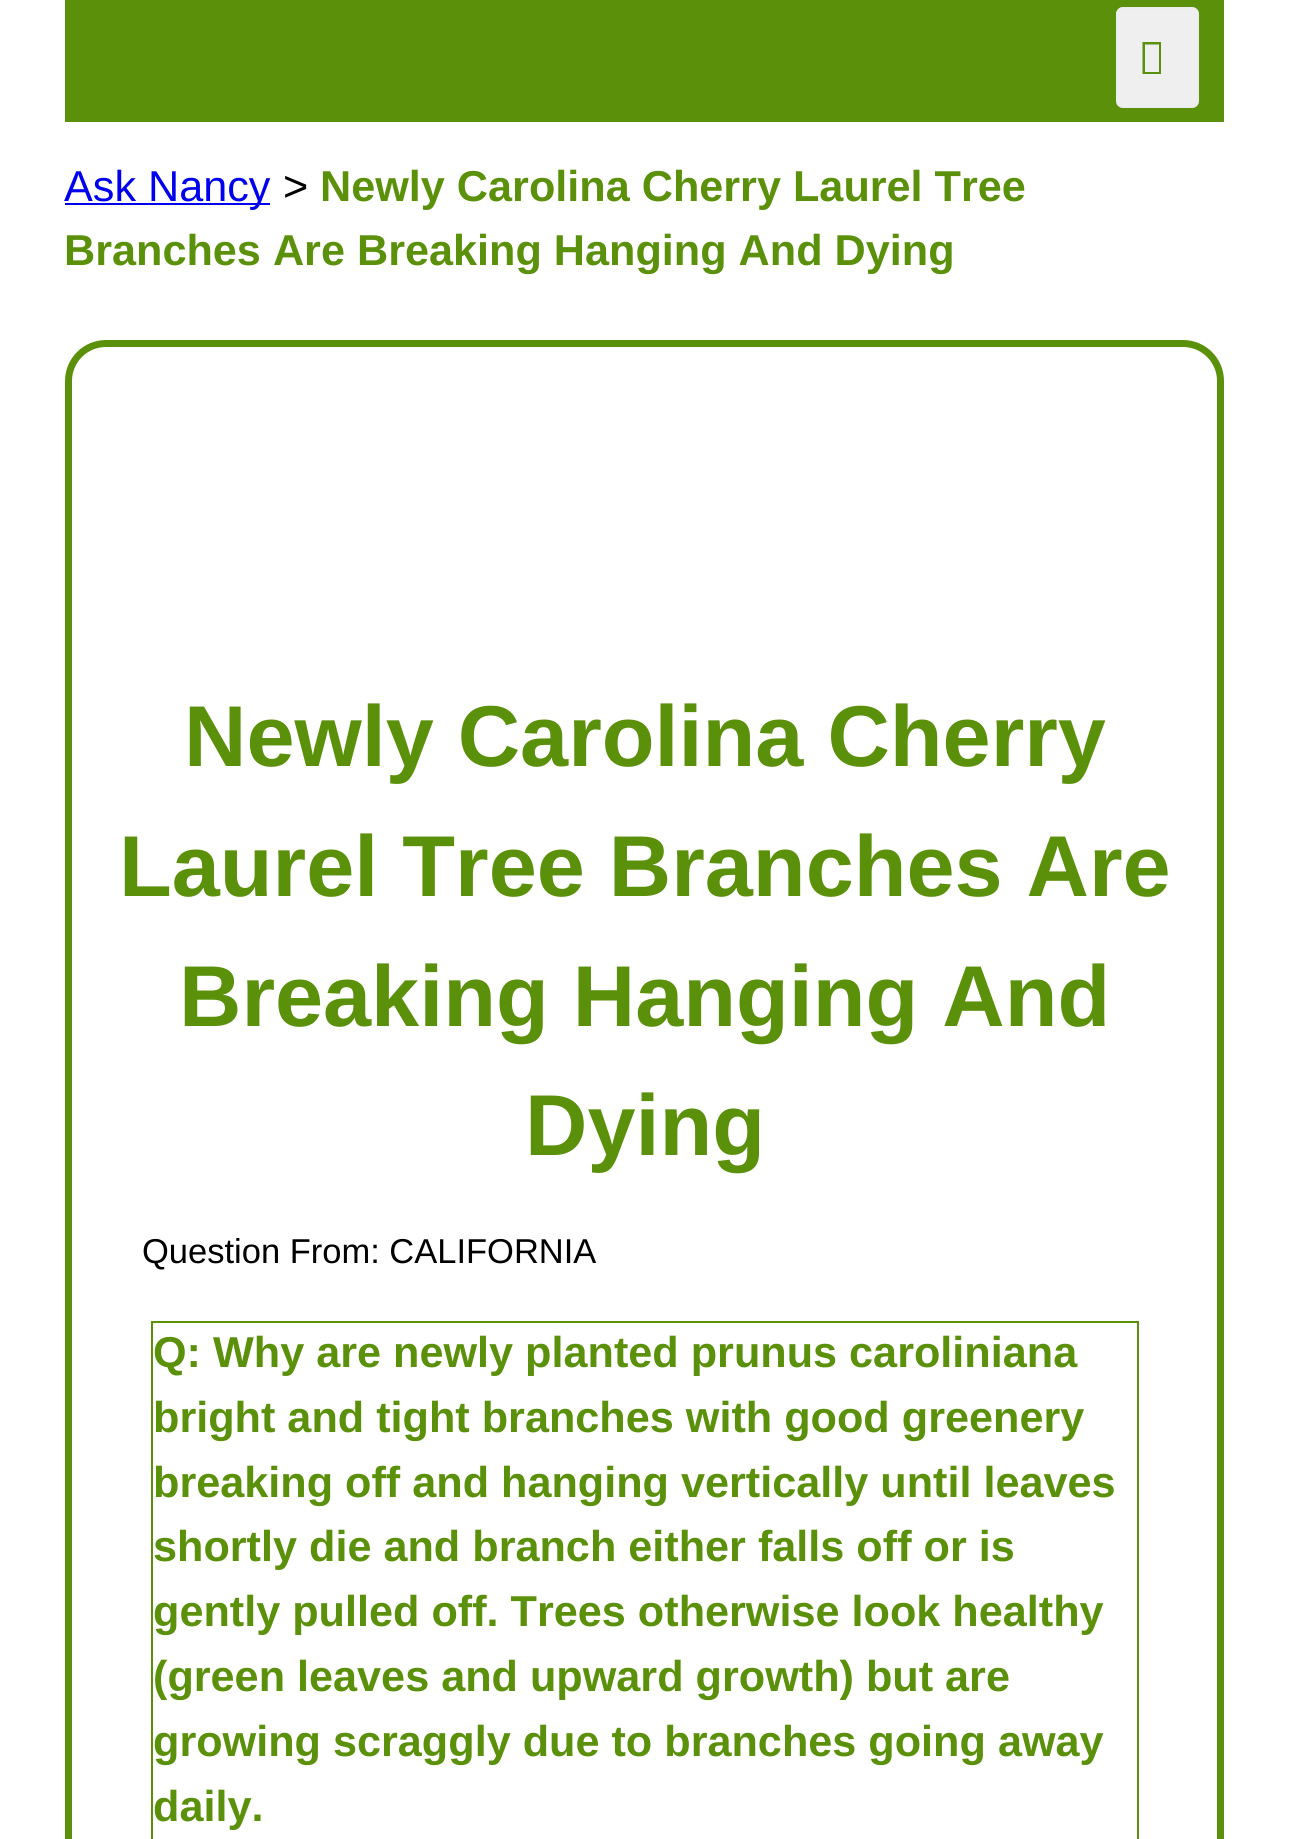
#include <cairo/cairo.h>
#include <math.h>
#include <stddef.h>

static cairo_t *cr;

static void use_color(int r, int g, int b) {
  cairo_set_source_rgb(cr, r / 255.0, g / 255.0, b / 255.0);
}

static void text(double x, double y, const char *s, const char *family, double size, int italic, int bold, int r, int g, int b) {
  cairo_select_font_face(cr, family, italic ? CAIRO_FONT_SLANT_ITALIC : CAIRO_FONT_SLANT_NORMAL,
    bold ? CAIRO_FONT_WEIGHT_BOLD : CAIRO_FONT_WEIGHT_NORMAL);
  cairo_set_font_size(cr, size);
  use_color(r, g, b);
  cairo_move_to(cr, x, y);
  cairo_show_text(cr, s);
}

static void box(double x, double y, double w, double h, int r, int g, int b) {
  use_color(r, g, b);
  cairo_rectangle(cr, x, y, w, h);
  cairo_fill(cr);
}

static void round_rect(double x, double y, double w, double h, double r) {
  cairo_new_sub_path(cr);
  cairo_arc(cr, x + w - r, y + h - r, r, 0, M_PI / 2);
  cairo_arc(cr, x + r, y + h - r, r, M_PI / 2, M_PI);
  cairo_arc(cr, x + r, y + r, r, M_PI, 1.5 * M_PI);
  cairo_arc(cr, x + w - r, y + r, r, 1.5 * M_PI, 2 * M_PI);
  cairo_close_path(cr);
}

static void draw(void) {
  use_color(255, 255, 255);
  cairo_paint(cr);
  box(65, 0, 1159, 122, 90, 144, 10);
  use_color(239, 239, 239);
  round_rect(1116, 7, 83, 101, 7);
  cairo_fill(cr);
  round_rect(1117, 8, 81, 99, 6);
  cairo_set_source_rgba(cr, 0.91, 0.91, 0.91, 0.3);
  cairo_stroke(cr);
  use_color(90, 144, 10);
  cairo_new_path(cr);
  cairo_move_to(cr, 1142.5, 74);
  cairo_line_to(cr, 1142.5, 42);
  cairo_line_to(cr, 1161, 42);
  cairo_line_to(cr, 1161, 74);
  cairo_close_path(cr);
  cairo_move_to(cr, 1145, 72);
  cairo_line_to(cr, 1159, 72);
  cairo_line_to(cr, 1159, 44.5);
  cairo_line_to(cr, 1145, 44.5);
  cairo_close_path(cr);
  cairo_fill(cr);
  box(65, 203, 205, 2, 0, 0, 238);
  round_rect(68.5, 343.5, 1152, 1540, 37.5);
  use_color(90, 144, 10);
  cairo_set_line_width(cr, 7);
  cairo_stroke(cr);
  cairo_rectangle(cr, 152, 1322, 986, 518);
  cairo_set_line_width(cr, 2);
  cairo_stroke(cr);
  text(64, 201, "Ask Nancy", "Liberation Sans", 43.2, 0, 0, 0, 0, 238);
  text(283, 201, ">", "Liberation Sans", 43.2, 0, 0, 0, 0, 0);
  text(320, 201, "Newly Carolina Cherry Laurel Tree", "Liberation Sans", 43.2, 0, 1, 90, 144, 10);
  text(64, 265, "Branches Are Breaking Hanging And Dying", "Liberation Sans", 43.2, 0, 1, 90, 144, 10);
  text(184, 766, "Newly Carolina Cherry", "Liberation Sans", 86.4, 0, 1, 90, 144, 10);
  text(119, 896, "Laurel Tree Branches Are", "Liberation Sans", 86.4, 0, 1, 90, 144, 10);
  text(179, 1026, "Breaking Hanging And", "Liberation Sans", 86.4, 0, 1, 90, 144, 10);
  text(525, 1155, "Dying", "Liberation Sans", 86.4, 0, 1, 90, 144, 10);
  text(142, 1263, "Question From: CALIFORNIA", "Liberation Sans", 34.5, 0, 0, 0, 0, 0);
  text(153, 1367, "Q: Why are newly planted prunus caroliniana", "Liberation Sans", 43.2, 0, 1, 90, 144, 10);
  text(153, 1432, "bright and tight branches with good greenery", "Liberation Sans", 43.2, 0, 1, 90, 144, 10);
  text(153, 1497, "breaking off and hanging vertically until leaves", "Liberation Sans", 43.2, 0, 1, 90, 144, 10);
  text(153, 1561, "shortly die and branch either falls off or is", "Liberation Sans", 43.2, 0, 1, 90, 144, 10);
  text(153, 1626, "gently pulled off. Trees otherwise look healthy", "Liberation Sans", 43.2, 0, 1, 90, 144, 10);
  text(153, 1691, "(green leaves and upward growth) but are", "Liberation Sans", 43.2, 0, 1, 90, 144, 10);
  text(153, 1756, "growing scraggly due to branches going away", "Liberation Sans", 43.2, 0, 1, 90, 144, 10);
  text(153, 1821, "daily.", "Liberation Sans", 43.2, 0, 1, 90, 144, 10);
}

int main(void) {
  cairo_surface_t *surface = cairo_image_surface_create(CAIRO_FORMAT_RGB24, 1289, 1839);
  cr = cairo_create(surface);
  cairo_font_options_t *options = cairo_font_options_create();
  cairo_font_options_set_hint_metrics(options, CAIRO_HINT_METRICS_OFF);
  cairo_font_options_set_hint_style(options, CAIRO_HINT_STYLE_NONE);
  cairo_set_font_options(cr, options);
  cairo_set_miter_limit(cr, 4);
  draw();
  cairo_surface_write_to_png(surface, "out.png");
  cairo_font_options_destroy(options);
  cairo_destroy(cr);
  cairo_surface_destroy(surface);
  return 0;
}
